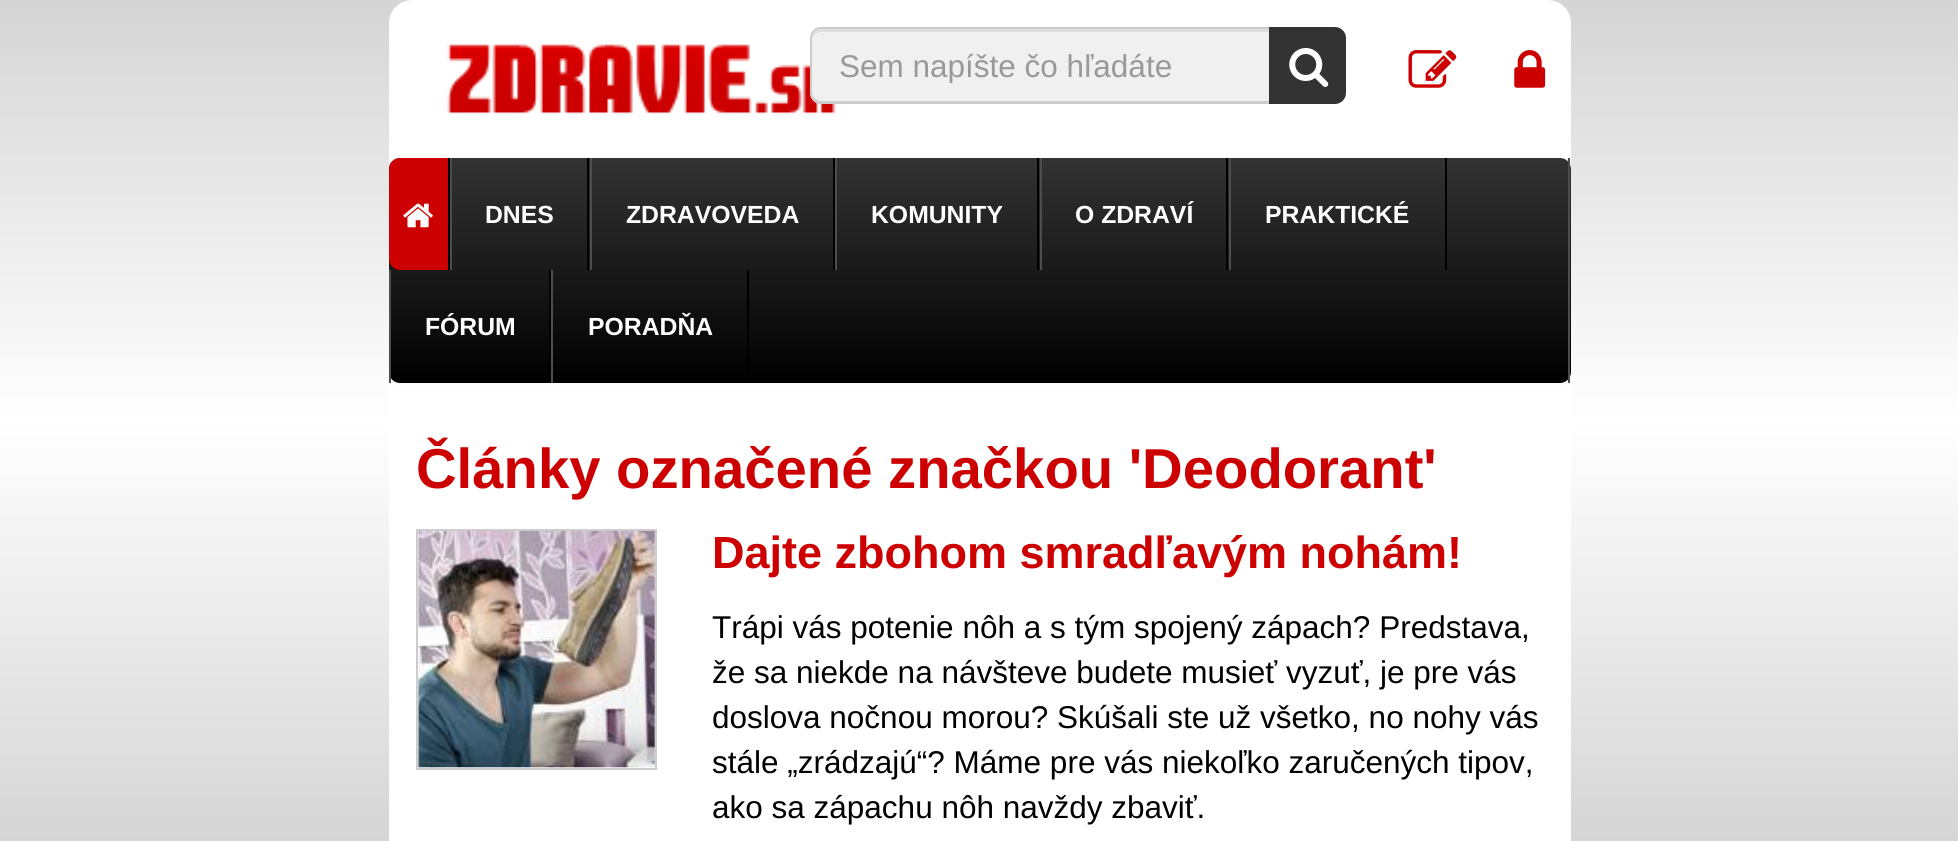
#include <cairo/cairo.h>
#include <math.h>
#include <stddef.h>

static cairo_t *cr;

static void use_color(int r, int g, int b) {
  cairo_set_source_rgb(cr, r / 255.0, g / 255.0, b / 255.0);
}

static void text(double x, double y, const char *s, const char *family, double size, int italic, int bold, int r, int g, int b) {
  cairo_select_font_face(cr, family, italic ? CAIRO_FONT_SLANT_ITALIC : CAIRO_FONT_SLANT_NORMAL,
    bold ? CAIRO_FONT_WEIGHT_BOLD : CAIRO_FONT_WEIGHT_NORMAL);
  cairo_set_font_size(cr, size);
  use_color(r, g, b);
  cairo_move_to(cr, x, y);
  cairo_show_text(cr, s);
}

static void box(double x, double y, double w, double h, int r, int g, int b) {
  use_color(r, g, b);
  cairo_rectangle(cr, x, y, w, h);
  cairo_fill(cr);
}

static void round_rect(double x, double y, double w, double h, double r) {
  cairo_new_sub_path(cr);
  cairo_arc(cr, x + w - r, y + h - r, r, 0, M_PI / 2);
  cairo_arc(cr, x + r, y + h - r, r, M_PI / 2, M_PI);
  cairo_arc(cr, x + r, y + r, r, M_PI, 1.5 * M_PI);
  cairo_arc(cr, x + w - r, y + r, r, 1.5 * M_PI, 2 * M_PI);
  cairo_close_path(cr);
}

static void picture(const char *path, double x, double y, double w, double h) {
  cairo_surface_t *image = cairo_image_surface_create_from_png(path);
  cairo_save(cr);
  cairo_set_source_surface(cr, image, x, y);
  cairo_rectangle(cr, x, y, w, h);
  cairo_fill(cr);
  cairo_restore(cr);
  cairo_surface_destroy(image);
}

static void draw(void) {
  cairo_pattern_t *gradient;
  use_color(255, 255, 255);
  cairo_paint(cr);
  gradient = cairo_pattern_create_linear(980, 0, 980, 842);
  cairo_pattern_add_color_stop_rgba(gradient, 0, 0.835, 0.835, 0.835, 1);
  cairo_pattern_add_color_stop_rgba(gradient, 0.5, 1, 1, 1, 1);
  cairo_pattern_add_color_stop_rgba(gradient, 1, 0.835, 0.835, 0.835, 1);
  cairo_set_source(cr, gradient);
  cairo_pattern_destroy(gradient);
  cairo_rectangle(cr, 0, 0, 1958, 841);
  cairo_fill(cr);
  use_color(255, 255, 255);
  cairo_new_path(cr);
  cairo_move_to(cr, 412, 0);
  cairo_line_to(cr, 1548, 0);
  cairo_curve_to(cr, 1560.5, 0, 1571, 10.5, 1571, 23);
  cairo_line_to(cr, 1571, 158);
  cairo_line_to(cr, 389, 158);
  cairo_line_to(cr, 389, 23);
  cairo_curve_to(cr, 389, 10.5, 399.5, 0, 412, 0);
  cairo_close_path(cr);
  cairo_fill(cr);
  picture("img_01.png", 447, 44, 389, 70);
  use_color(240, 240, 240);
  cairo_new_path(cr);
  cairo_move_to(cr, 821, 27);
  cairo_line_to(cr, 1269, 27);
  cairo_line_to(cr, 1269, 104);
  cairo_line_to(cr, 821, 104);
  cairo_curve_to(cr, 815, 104, 810, 99, 810, 93);
  cairo_line_to(cr, 810, 38);
  cairo_curve_to(cr, 810, 32, 815, 27, 821, 27);
  cairo_close_path(cr);
  cairo_fill(cr);
  use_color(222, 222, 222);
  cairo_new_path(cr);
  cairo_move_to(cr, 821, 32);
  cairo_line_to(cr, 1269, 32);
  cairo_line_to(cr, 1269, 29);
  cairo_line_to(cr, 821, 29);
  cairo_curve_to(cr, 816, 29, 812, 33, 812, 38);
  cairo_line_to(cr, 812, 40);
  cairo_curve_to(cr, 812, 36, 816, 32, 821, 32);
  cairo_close_path(cr);
  cairo_fill(cr);
  use_color(204, 204, 204);
  cairo_set_fill_rule(cr, CAIRO_FILL_RULE_EVEN_ODD);
  cairo_new_path(cr);
  cairo_move_to(cr, 821, 27);
  cairo_line_to(cr, 1269, 27);
  cairo_line_to(cr, 1269, 104);
  cairo_line_to(cr, 821, 104);
  cairo_curve_to(cr, 815, 104, 810, 98, 810, 92);
  cairo_line_to(cr, 810, 38);
  cairo_curve_to(cr, 810, 32, 815, 27, 821, 27);
  cairo_close_path(cr);
  cairo_move_to(cr, 821, 29);
  cairo_line_to(cr, 1269, 29);
  cairo_line_to(cr, 1269, 101);
  cairo_line_to(cr, 821, 101);
  cairo_curve_to(cr, 816, 101, 812, 97, 812, 92);
  cairo_line_to(cr, 812, 38);
  cairo_curve_to(cr, 812, 33, 816, 29, 821, 29);
  cairo_close_path(cr);
  cairo_fill(cr);
  use_color(51, 51, 51);
  cairo_new_path(cr);
  cairo_move_to(cr, 1269, 27);
  cairo_line_to(cr, 1335, 27);
  cairo_curve_to(cr, 1341, 27, 1346, 32, 1346, 38);
  cairo_line_to(cr, 1346, 93);
  cairo_curve_to(cr, 1346, 99, 1341, 104, 1335, 104);
  cairo_line_to(cr, 1269, 104);
  cairo_close_path(cr);
  cairo_fill(cr);
  picture("img_02.png", 1289, 48, 40, 39);
  picture("img_03.png", 1408, 50, 49, 38);
  picture("img_04.png", 1514, 50, 32, 38);
  box(389, 158, 1182, 225, 255, 255, 255);
  gradient = cairo_pattern_create_linear(980, 157, 980, 383);
  cairo_pattern_add_color_stop_rgba(gradient, 0, 0.2, 0.2, 0.2, 1);
  cairo_pattern_add_color_stop_rgba(gradient, 1, 0, 0, 0, 1);
  cairo_set_source(cr, gradient);
  cairo_pattern_destroy(gradient);
  round_rect(389, 158, 1182, 225, 11);
  cairo_fill(cr);
  box(1568, 158, 2, 225, 77, 77, 77);
  box(448, 158, 2, 112, 0, 0, 0);
  use_color(204, 0, 0);
  cairo_new_path(cr);
  cairo_move_to(cr, 400, 158);
  cairo_line_to(cr, 448, 158);
  cairo_line_to(cr, 448, 270);
  cairo_line_to(cr, 400, 270);
  cairo_curve_to(cr, 394, 270, 389, 265, 389, 259);
  cairo_line_to(cr, 389, 169);
  cairo_curve_to(cr, 389, 163, 394, 158, 400, 158);
  cairo_close_path(cr);
  cairo_fill(cr);
  picture("img_05.png", 403, 203, 30, 25);
  box(587, 158, 2, 112, 0, 0, 0);
  box(450, 158, 2, 112, 77, 77, 77);
  box(833, 158, 2, 112, 0, 0, 0);
  box(590, 158, 2, 112, 77, 77, 77);
  box(1037, 158, 2, 112, 0, 0, 0);
  box(835, 158, 2, 112, 77, 77, 77);
  box(1226, 158, 2, 112, 0, 0, 0);
  box(1040, 158, 2, 112, 77, 77, 77);
  box(1445, 158, 2, 112, 0, 0, 0);
  box(1229, 158, 2, 112, 77, 77, 77);
  box(549, 270, 2, 102, 0, 0, 0);
  box(389, 270, 2, 113, 77, 77, 77);
  box(747, 270, 2, 102, 0, 0, 0);
  box(551, 270, 2, 113, 77, 77, 77);
  box(389, 385, 1182, 456, 255, 255, 255);
  cairo_rectangle(cr, 417, 530, 239, 239);
  use_color(204, 204, 204);
  cairo_stroke(cr);
  picture("img_06.png", 418, 531, 237, 237);
  cairo_save(cr);
  cairo_set_fill_rule(cr, CAIRO_FILL_RULE_WINDING);
  cairo_rectangle(cr, 839, 47, 403, 36);
  cairo_clip(cr);
  text(839, 77, "Sem napíšte čo hľadáte", "Liberation Sans", 31.5, 0, 0, 153, 153, 153);
  cairo_restore(cr);
  text(485, 223, "DNES", "Liberation Sans", 24.75, 0, 1, 255, 255, 255);
  text(626, 223, "ZDRAVOVEDA", "Liberation Sans", 24.75, 0, 1, 255, 255, 255);
  text(871, 223, "KOMUNITY", "Liberation Sans", 24.75, 0, 1, 255, 255, 255);
  text(1075, 223, "O ZDRAVÍ", "Liberation Sans", 24.75, 0, 1, 255, 255, 255);
  text(1265, 223, "PRAKTICKÉ", "Liberation Sans", 24.75, 0, 1, 255, 255, 255);
  text(425, 335, "FÓRUM", "Liberation Sans", 24.75, 0, 1, 255, 255, 255);
  text(588, 335, "PORADŇA", "Liberation Sans", 24.75, 0, 1, 255, 255, 255);
  text(416, 488, "Články označené značkou 'Deodorant'", "Liberation Sans", 56.25, 0, 1, 204, 0, 0);
  text(712, 568, "Dajte zbohom smradľavým nohám!", "Liberation Sans", 45, 0, 1, 204, 0, 0);
  text(712, 638, "Trápi vás potenie nôh a s tým spojený zápach? Predstava,", "Liberation Sans", 31.5, 0, 0, 0, 0, 0);
  text(712, 683, "že sa niekde na návšteve budete musieť vyzuť, je pre vás", "Liberation Sans", 31.5, 0, 0, 0, 0, 0);
  text(712, 728, "doslova nočnou morou? Skúšali ste už všetko, no nohy vás", "Liberation Sans", 31.5, 0, 0, 0, 0, 0);
  text(712, 773, "stále „zrádzajú“? Máme pre vás niekoľko zaručených tipov,", "Liberation Sans", 31.5, 0, 0, 0, 0, 0);
  text(712, 818, "ako sa zápachu nôh navždy zbaviť.", "Liberation Sans", 31.5, 0, 0, 0, 0, 0);
}

int main(void) {
  cairo_surface_t *surface = cairo_image_surface_create(CAIRO_FORMAT_RGB24, 1958, 841);
  cr = cairo_create(surface);
  cairo_font_options_t *options = cairo_font_options_create();
  cairo_font_options_set_hint_metrics(options, CAIRO_HINT_METRICS_OFF);
  cairo_font_options_set_hint_style(options, CAIRO_HINT_STYLE_NONE);
  cairo_set_font_options(cr, options);
  cairo_set_miter_limit(cr, 4);
  draw();
  cairo_surface_write_to_png(surface, "out.png");
  cairo_font_options_destroy(options);
  cairo_destroy(cr);
  cairo_surface_destroy(surface);
  return 0;
}
